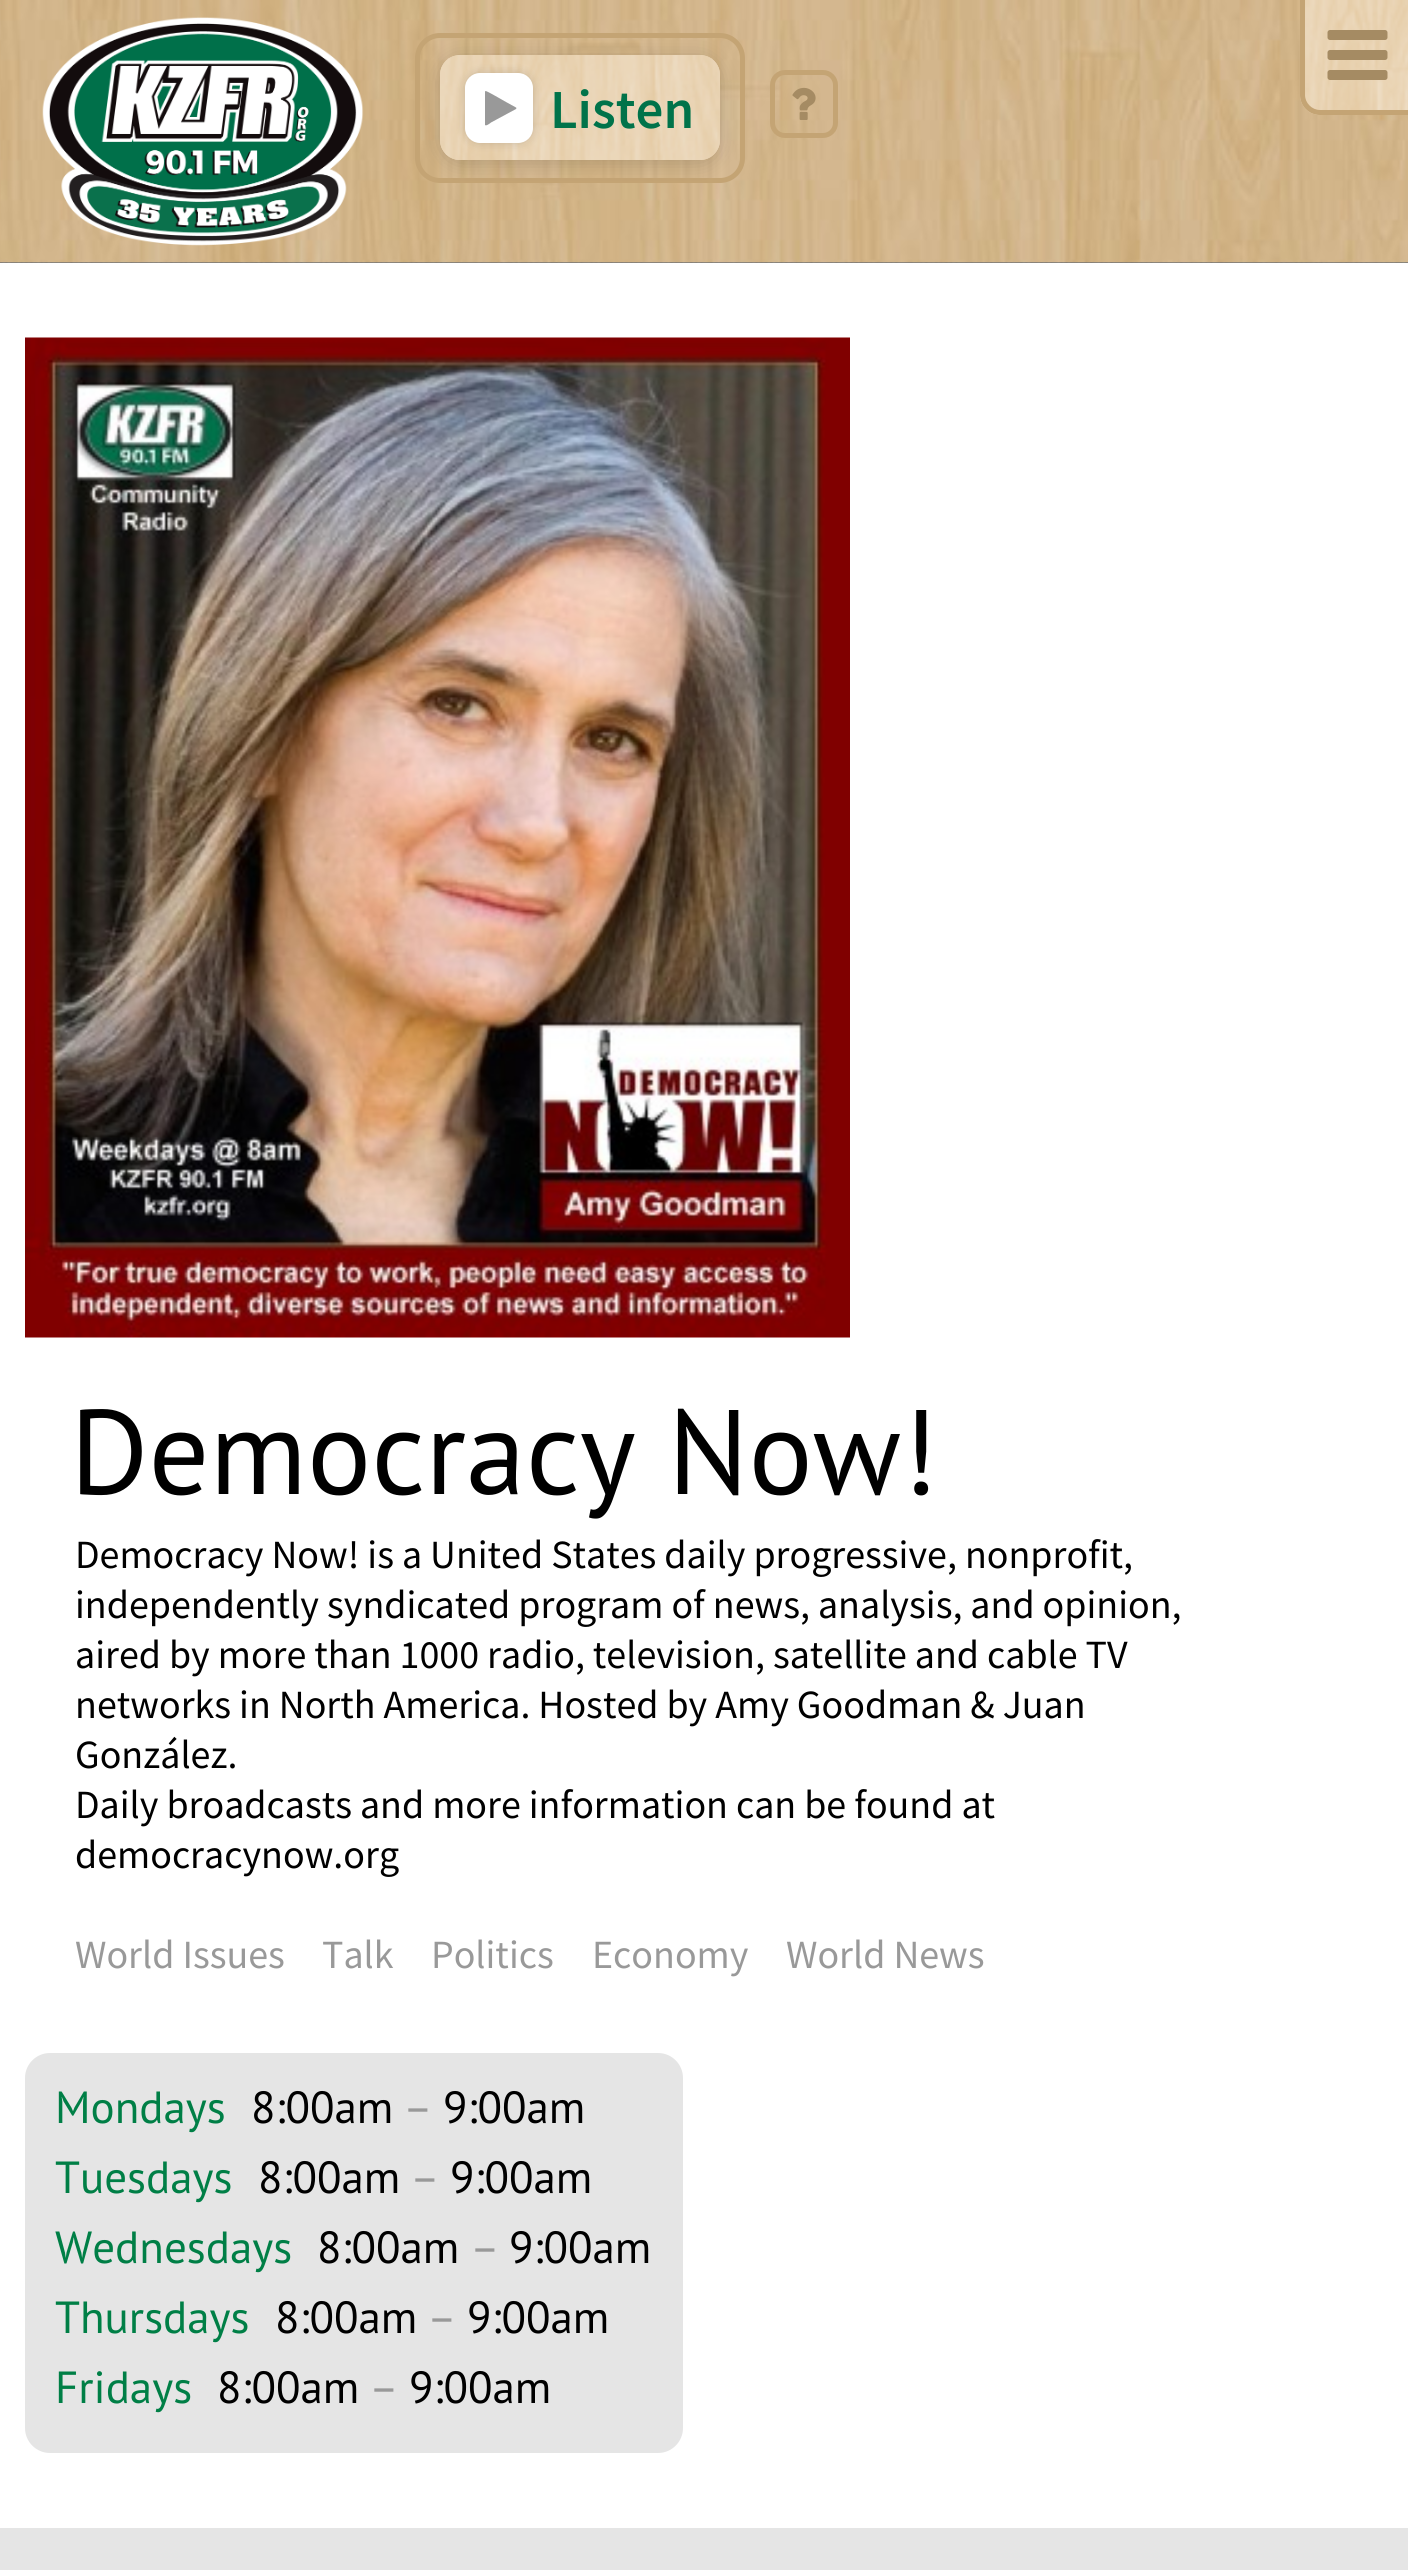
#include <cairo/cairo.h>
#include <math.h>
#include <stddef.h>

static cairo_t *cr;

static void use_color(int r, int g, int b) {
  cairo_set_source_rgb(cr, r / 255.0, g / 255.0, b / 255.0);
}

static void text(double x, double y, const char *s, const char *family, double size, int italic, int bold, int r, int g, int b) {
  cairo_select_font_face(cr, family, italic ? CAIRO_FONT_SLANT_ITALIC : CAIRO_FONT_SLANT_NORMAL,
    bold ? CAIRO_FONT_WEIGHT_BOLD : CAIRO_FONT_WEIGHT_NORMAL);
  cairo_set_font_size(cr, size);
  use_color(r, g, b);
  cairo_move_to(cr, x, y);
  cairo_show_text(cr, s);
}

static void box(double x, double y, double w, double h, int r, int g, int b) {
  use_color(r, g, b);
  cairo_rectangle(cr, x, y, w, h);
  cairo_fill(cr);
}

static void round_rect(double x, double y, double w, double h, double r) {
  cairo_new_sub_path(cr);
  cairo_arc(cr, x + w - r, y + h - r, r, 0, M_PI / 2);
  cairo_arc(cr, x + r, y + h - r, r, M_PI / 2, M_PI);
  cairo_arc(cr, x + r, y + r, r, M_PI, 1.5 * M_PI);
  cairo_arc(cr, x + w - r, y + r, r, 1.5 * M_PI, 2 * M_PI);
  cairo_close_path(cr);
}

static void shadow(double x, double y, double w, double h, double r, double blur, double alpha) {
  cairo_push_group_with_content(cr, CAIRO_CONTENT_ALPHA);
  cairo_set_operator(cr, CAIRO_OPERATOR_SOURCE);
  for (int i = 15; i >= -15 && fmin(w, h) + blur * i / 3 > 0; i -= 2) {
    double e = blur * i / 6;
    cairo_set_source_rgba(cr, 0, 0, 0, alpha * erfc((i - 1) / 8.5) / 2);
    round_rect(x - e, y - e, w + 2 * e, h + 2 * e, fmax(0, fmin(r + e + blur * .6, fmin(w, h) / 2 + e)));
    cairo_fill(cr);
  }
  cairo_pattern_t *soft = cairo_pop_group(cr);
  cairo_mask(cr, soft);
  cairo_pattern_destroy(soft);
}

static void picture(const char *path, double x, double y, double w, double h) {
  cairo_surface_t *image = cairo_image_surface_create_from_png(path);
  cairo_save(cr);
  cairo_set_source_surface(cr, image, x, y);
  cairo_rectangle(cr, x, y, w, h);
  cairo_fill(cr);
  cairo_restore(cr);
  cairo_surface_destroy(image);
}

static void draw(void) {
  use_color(255, 255, 255);
  cairo_paint(cr);
  picture("img_01.png", 0, 0, 1408, 263);
  picture("img_02.png", 42, 17, 322, 229);
  round_rect(417.5, 35.5, 325, 145, 22.5);
  use_color(196, 164, 116);
  cairo_set_line_width(cr, 5);
  cairo_stroke(cr);
  use_color(0, 0, 0);
  shadow(440, 58, 280, 105, 20, 10, 0.15);
  use_color(234, 213, 183);
  round_rect(440, 55, 280, 105, 20);
  cairo_fill(cr);
  picture("img_03.png", 440, 55, 280, 105);
  use_color(0, 0, 0);
  shadow(465, 73, 68, 70, 15, 5, 0.15);
  use_color(255, 255, 255);
  round_rect(465, 73, 68, 70, 15);
  cairo_fill(cr);
  use_color(153, 153, 153);
  cairo_new_path(cr);
  cairo_move_to(cr, 516, 109);
  cairo_line_to(cr, 491, 122.5);
  cairo_curve_to(cr, 490.5, 123, 486, 126.5, 485, 125);
  cairo_line_to(cr, 485, 91.5);
  cairo_line_to(cr, 485.5, 91);
  cairo_curve_to(cr, 486.5, 90.5, 504, 101, 506, 102);
  cairo_line_to(cr, 516, 107.5);
  cairo_line_to(cr, 516.5, 108);
  cairo_close_path(cr);
  cairo_fill(cr);
  round_rect(772.5, 72.5, 63, 63, 12.5);
  use_color(196, 164, 116);
  cairo_stroke(cr);
  picture("img_04.png", 792, 87, 24, 33);
  picture("img_05.png", 1300, 0, 108, 115);
  cairo_set_fill_rule(cr, CAIRO_FILL_RULE_EVEN_ODD);
  cairo_new_path(cr);
  cairo_move_to(cr, 1300, 0);
  cairo_line_to(cr, 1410, 0);
  cairo_line_to(cr, 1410, 115);
  cairo_line_to(cr, 1320, 115);
  cairo_curve_to(cr, 1309, 115, 1300, 106, 1300, 95);
  cairo_close_path(cr);
  cairo_move_to(cr, 1305, 0);
  cairo_line_to(cr, 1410, 0);
  cairo_line_to(cr, 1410, 110);
  cairo_line_to(cr, 1320, 110);
  cairo_curve_to(cr, 1312, 110, 1305, 103, 1305, 95);
  cairo_close_path(cr);
  cairo_fill(cr);
  picture("img_06.png", 1327, 30, 61, 50);
  picture("img_07.png", 0, 262, 1408, 1);
  picture("img_08.png", 25, 337, 825, 1001);
  use_color(229, 229, 229);
  round_rect(25, 2053, 658, 400, 25);
  cairo_fill(cr);
  box(0, 2528, 1408, 42, 229, 229, 229);
  text(550, 128, "Listen", "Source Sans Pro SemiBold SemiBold", 55, 0, 0, 0, 115, 74);
  text(70, 1494, "Democracy Now!", "PT Sans", 120, 0, 0, 0, 0, 0);
  text(75, 1568, "Democracy Now! is a United States daily progressive, nonprofit,", "Source Sans Pro", 40, 0, 0, 0, 0, 0);
  text(75, 1618, "independently syndicated program of news, analysis, and opinion,", "Source Sans Pro", 40, 0, 0, 0, 0, 0);
  text(75, 1668, "aired by more than 1000 radio, television, satellite and cable TV", "Source Sans Pro", 40, 0, 0, 0, 0, 0);
  text(75, 1718, "networks in North America. Hosted by Amy Goodman & Juan", "Source Sans Pro", 40, 0, 0, 0, 0, 0);
  text(75, 1768, "González.", "Source Sans Pro", 40, 0, 0, 0, 0, 0);
  text(75, 1818, "Daily broadcasts and more information can be found at", "Source Sans Pro", 40, 0, 0, 0, 0, 0);
  text(75, 1868, "democracynow.org", "Source Sans Pro", 40, 0, 0, 0, 0, 0);
  text(75, 1968, "World Issues", "Source Sans Pro", 40, 0, 0, 153, 153, 153);
  text(322, 1968, "Talk", "Source Sans Pro", 40, 0, 0, 153, 153, 153);
  text(431, 1968, "Politics", "Source Sans Pro", 40, 0, 0, 153, 153, 153);
  text(592, 1968, "Economy", "Source Sans Pro", 40, 0, 0, 153, 153, 153);
  text(786, 1968, "World News", "Source Sans Pro", 40, 0, 0, 153, 153, 153);
  text(55, 2123, "Mondays", "PT Sans", 45, 0, 0, 0, 127, 70);
  text(251, 2123, "8:00am", "PT Sans", 45, 0, 0, 0, 0, 0);
  text(403, 2123, "–", "PT Sans", 45, 0, 0, 153, 153, 153);
  text(443, 2123, "9:00am", "PT Sans", 45, 0, 0, 0, 0, 0);
  text(55, 2193, "Tuesdays", "PT Sans", 45, 0, 0, 0, 127, 70);
  text(258, 2193, "8:00am", "PT Sans", 45, 0, 0, 0, 0, 0);
  text(410, 2193, "–", "PT Sans", 45, 0, 0, 153, 153, 153);
  text(450, 2193, "9:00am", "PT Sans", 45, 0, 0, 0, 0, 0);
  text(55, 2263, "Wednesdays", "PT Sans", 45, 0, 0, 0, 127, 70);
  text(317, 2263, "8:00am", "PT Sans", 45, 0, 0, 0, 0, 0);
  text(470, 2263, "–", "PT Sans", 45, 0, 0, 153, 153, 153);
  text(509, 2263, "9:00am", "PT Sans", 45, 0, 0, 0, 0, 0);
  text(55, 2333, "Thursdays", "PT Sans", 45, 0, 0, 0, 127, 70);
  text(275, 2333, "8:00am", "PT Sans", 45, 0, 0, 0, 0, 0);
  text(427, 2333, "–", "PT Sans", 45, 0, 0, 153, 153, 153);
  text(467, 2333, "9:00am", "PT Sans", 45, 0, 0, 0, 0, 0);
  text(55, 2403, "Fridays", "PT Sans", 45, 0, 0, 0, 127, 70);
  text(217, 2403, "8:00am", "PT Sans", 45, 0, 0, 0, 0, 0);
  text(369, 2403, "–", "PT Sans", 45, 0, 0, 153, 153, 153);
  text(409, 2403, "9:00am", "PT Sans", 45, 0, 0, 0, 0, 0);
}

int main(void) {
  cairo_surface_t *surface = cairo_image_surface_create(CAIRO_FORMAT_RGB24, 1408, 2570);
  cr = cairo_create(surface);
  cairo_font_options_t *options = cairo_font_options_create();
  cairo_font_options_set_hint_metrics(options, CAIRO_HINT_METRICS_OFF);
  cairo_font_options_set_hint_style(options, CAIRO_HINT_STYLE_NONE);
  cairo_set_font_options(cr, options);
  cairo_set_miter_limit(cr, 4);
  draw();
  cairo_surface_write_to_png(surface, "out.png");
  cairo_font_options_destroy(options);
  cairo_destroy(cr);
  cairo_surface_destroy(surface);
  return 0;
}
